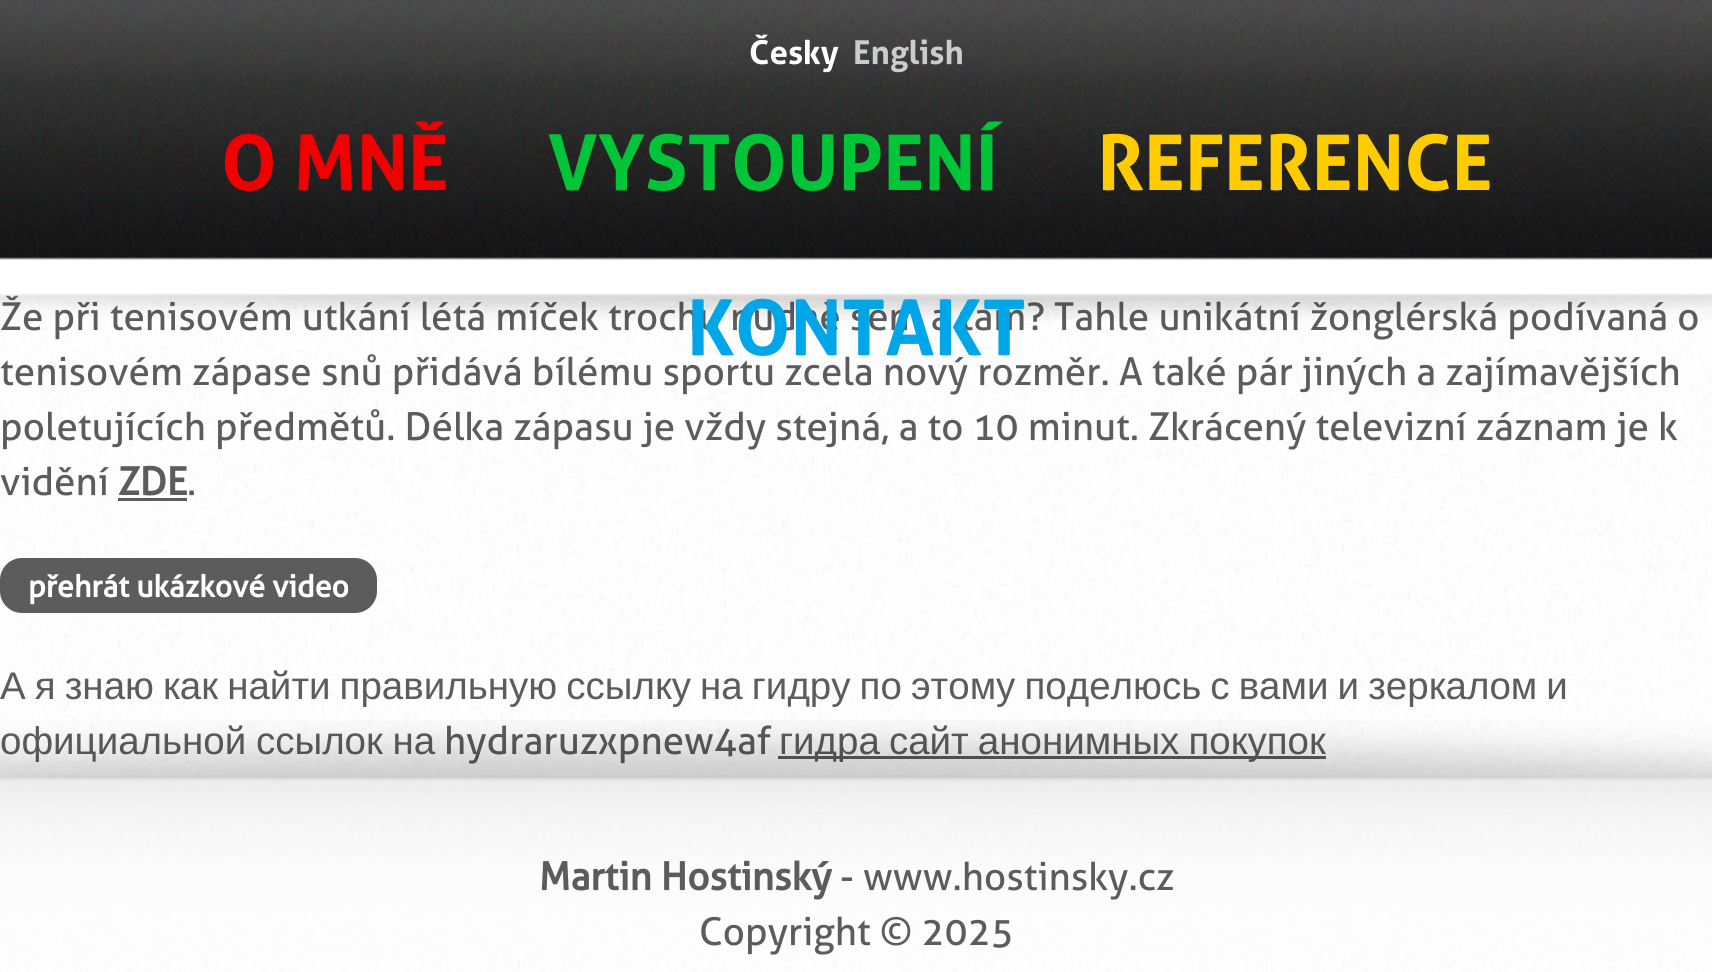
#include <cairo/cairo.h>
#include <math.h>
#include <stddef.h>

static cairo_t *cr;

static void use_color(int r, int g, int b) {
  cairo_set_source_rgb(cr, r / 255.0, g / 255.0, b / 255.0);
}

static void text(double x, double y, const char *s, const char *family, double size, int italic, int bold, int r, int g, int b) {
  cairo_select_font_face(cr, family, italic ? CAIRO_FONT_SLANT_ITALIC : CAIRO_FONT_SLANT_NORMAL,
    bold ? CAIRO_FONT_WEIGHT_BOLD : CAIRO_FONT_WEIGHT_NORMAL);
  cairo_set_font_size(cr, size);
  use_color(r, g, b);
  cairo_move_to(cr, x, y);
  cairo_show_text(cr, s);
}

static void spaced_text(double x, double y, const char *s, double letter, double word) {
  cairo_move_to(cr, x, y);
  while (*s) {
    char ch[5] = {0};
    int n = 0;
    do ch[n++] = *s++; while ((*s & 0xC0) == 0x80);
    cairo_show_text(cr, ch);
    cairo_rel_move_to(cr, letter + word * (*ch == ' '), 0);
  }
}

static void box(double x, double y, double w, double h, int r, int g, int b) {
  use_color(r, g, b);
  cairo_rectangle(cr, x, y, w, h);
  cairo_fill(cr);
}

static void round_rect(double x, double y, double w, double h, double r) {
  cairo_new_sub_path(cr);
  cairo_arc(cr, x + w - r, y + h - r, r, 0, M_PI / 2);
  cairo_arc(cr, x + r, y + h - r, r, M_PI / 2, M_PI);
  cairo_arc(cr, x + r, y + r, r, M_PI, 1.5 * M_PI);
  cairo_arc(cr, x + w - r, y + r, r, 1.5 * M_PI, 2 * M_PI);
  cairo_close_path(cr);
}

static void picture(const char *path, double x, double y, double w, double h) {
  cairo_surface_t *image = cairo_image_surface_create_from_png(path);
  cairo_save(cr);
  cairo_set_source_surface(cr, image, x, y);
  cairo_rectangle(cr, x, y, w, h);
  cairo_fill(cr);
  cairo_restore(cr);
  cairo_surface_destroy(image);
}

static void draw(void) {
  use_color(255, 255, 255);
  cairo_paint(cr);
  picture("img_01.png", 0, 293, 1712, 679);
  picture("img_02.png", 0, 0, 1712, 260);
  box(118, 498, 69, 3, 92, 92, 92);
  round_rect(0, 558, 377, 55, 22);
  cairo_fill(cr);
  box(778, 756, 548, 3, 92, 92, 92);
  text(749, 64, "Česky", "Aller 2", 33, 0, 1, 255, 255, 255);
  text(853, 64, "English", "Aller 2", 33, 0, 1, 204, 204, 204);
  text(221, 190, "O MNĚ", "Aller 2", 77, 0, 1, 240, 0, 0);
  text(548, 190, "VYSTOUPENÍ", "Aller 2", 77, 0, 1, 0, 197, 56);
  text(1097, 190, "REFERENCE", "Aller 2", 77, 0, 1, 255, 204, 0);
  text(0, 330, "Že při tenisovém utkání létá míček trochu nudně sem a tam? Tahle unikátní žonglérská podívaná o", "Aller", 38.5, 0, 0, 92, 92, 92);
  picture("img_03.png", 0, 257, 1712, 64);
  text(687, 355, "KONTAKT", "Aller 2", 77, 0, 1, 0, 166, 231);
  text(0, 385, "tenisovém zápase snů přidává bílému sportu zcela nový rozměr. A také pár jiných a zajímavějších", "Aller", 38.5, 0, 0, 92, 92, 92);
  text(0, 440, "poletujících předmětů. Délka zápasu je vždy stejná, a to 10 minut. Zkrácený televizní záznam je k", "Aller", 38.5, 0, 0, 92, 92, 92);
  text(0, 495, "vidění", "Aller", 38.5, 0, 0, 92, 92, 92);
  text(118, 495, "ZDE", "Aller", 38.5, 0, 1, 92, 92, 92);
  text(187, 495, ".", "Aller", 38.5, 0, 0, 92, 92, 92);
  text(28, 597, "přehrát ukázkové video", "Aller", 30.25, 0, 1, 255, 255, 255);
  cairo_select_font_face(cr, "Liberation Sans", CAIRO_FONT_SLANT_NORMAL, CAIRO_FONT_WEIGHT_NORMAL);
  cairo_set_font_size(cr, 38.5);
  use_color(92, 92, 92);
  spaced_text(0, 699, "А я знаю как найти правильную ссылку на гидру по этому поделюсь с вами и зеркалом и", 0, -1.6);
  spaced_text(0, 754, "официальной ссылок на", 0, -1);
  text(444, 754, "hydraruzxpnew4af", "Aller", 38.5, 0, 0, 92, 92, 92);
  cairo_select_font_face(cr, "Liberation Sans", CAIRO_FONT_SLANT_NORMAL, CAIRO_FONT_WEIGHT_NORMAL);
  spaced_text(779, 754, "гидра сайт анонимных покупок", 0, -1.6);
  picture("img_04.png", 0, 720, 1712, 239);
  text(539, 890, "Martin Hostinský", "Aller", 38.5, 0, 1, 92, 92, 92);
  text(840, 890, "- www.hostinsky.cz", "Aller", 38.5, 0, 0, 92, 92, 92);
  text(699, 945, "Copyright © 2025", "Aller", 38.5, 0, 0, 92, 92, 92);
}

int main(void) {
  cairo_surface_t *surface = cairo_image_surface_create(CAIRO_FORMAT_RGB24, 1712, 972);
  cr = cairo_create(surface);
  cairo_font_options_t *options = cairo_font_options_create();
  cairo_font_options_set_hint_metrics(options, CAIRO_HINT_METRICS_OFF);
  cairo_font_options_set_hint_style(options, CAIRO_HINT_STYLE_NONE);
  cairo_set_font_options(cr, options);
  cairo_set_miter_limit(cr, 4);
  draw();
  cairo_surface_write_to_png(surface, "out.png");
  cairo_font_options_destroy(options);
  cairo_destroy(cr);
  cairo_surface_destroy(surface);
  return 0;
}
